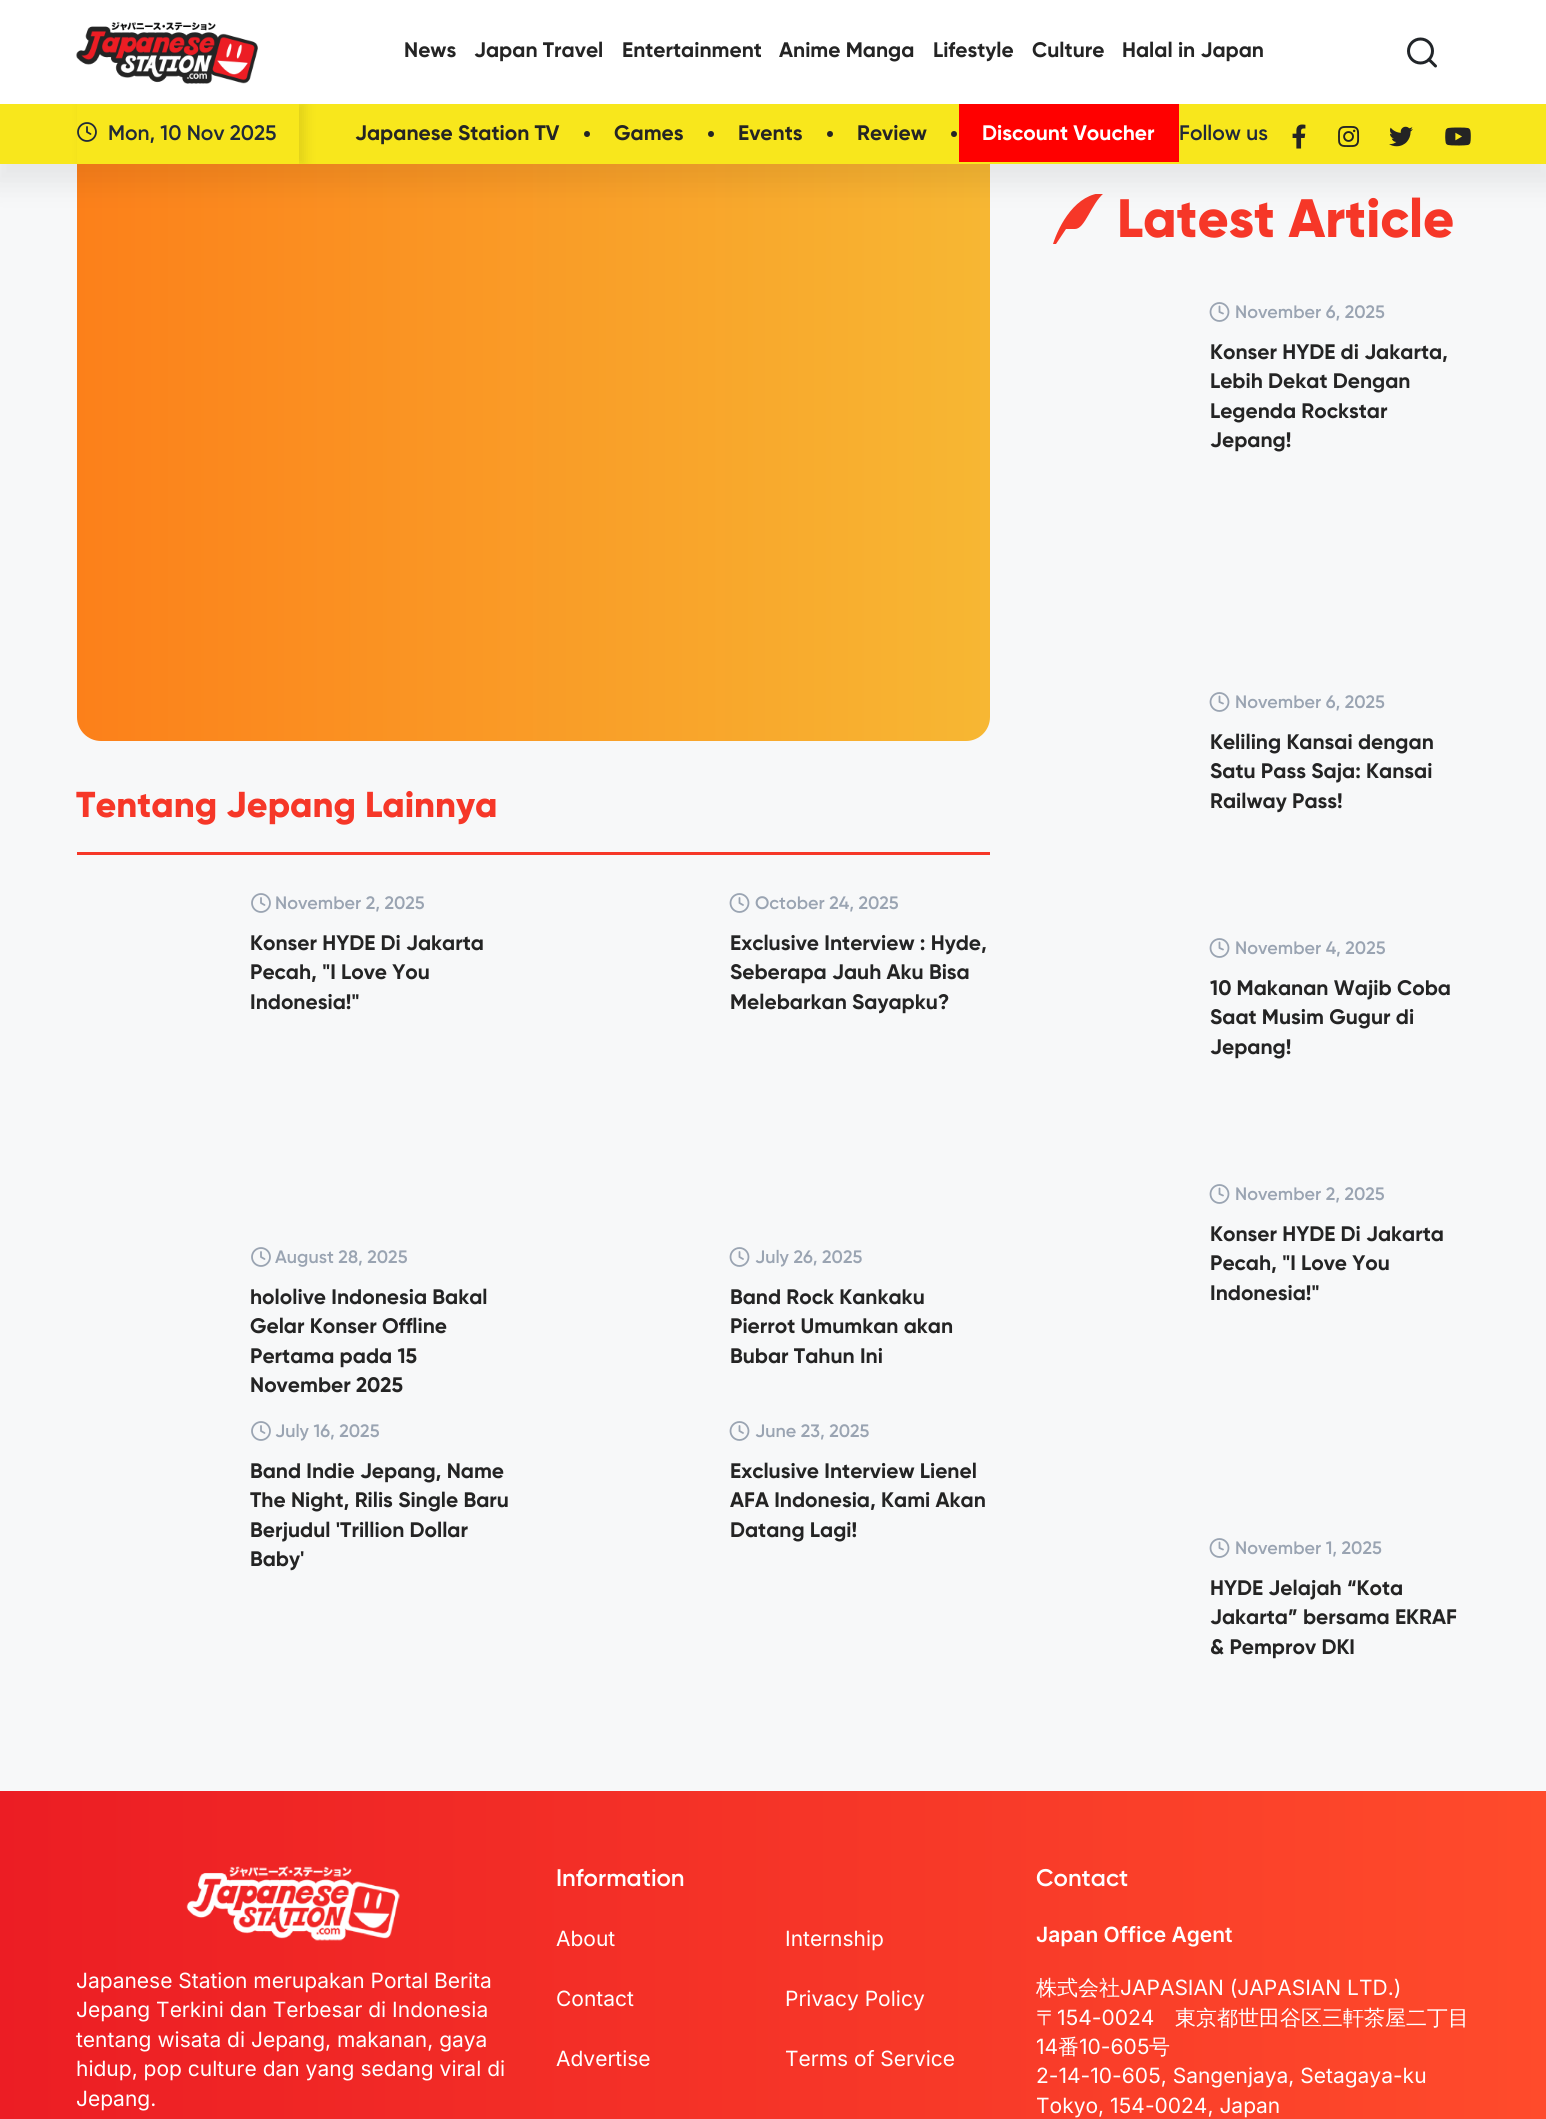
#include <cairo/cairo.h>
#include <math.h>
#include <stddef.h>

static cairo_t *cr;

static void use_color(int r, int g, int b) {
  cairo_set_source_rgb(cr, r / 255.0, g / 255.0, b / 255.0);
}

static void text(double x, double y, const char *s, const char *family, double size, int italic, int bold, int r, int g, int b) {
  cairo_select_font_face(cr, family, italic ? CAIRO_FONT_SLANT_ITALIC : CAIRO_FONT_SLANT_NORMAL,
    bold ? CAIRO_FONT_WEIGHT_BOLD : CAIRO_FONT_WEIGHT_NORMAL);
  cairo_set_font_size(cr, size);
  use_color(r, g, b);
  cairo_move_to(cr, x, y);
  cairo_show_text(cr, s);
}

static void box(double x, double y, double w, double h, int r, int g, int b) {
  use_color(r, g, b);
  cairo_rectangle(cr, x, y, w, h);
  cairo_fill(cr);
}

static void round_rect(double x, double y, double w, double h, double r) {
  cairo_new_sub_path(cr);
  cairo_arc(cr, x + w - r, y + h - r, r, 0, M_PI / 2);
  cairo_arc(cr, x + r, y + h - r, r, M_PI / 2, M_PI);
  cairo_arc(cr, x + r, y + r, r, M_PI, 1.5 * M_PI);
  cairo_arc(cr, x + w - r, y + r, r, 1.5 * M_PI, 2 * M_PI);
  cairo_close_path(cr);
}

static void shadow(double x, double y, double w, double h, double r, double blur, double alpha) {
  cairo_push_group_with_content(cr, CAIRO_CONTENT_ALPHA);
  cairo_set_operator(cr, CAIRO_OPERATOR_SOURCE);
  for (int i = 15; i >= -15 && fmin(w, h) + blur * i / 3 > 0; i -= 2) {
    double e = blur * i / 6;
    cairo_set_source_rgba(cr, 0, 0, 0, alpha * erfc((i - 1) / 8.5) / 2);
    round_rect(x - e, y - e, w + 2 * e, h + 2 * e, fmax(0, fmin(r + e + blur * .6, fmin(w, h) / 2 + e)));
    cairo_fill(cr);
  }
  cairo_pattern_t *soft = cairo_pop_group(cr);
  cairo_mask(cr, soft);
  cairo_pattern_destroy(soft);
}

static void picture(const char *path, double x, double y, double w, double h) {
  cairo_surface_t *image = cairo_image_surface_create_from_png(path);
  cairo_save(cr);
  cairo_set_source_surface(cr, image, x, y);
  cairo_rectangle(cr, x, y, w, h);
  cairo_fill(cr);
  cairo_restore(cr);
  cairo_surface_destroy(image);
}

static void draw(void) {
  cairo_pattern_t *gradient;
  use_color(247, 248, 249);
  cairo_paint(cr);
  gradient = cairo_pattern_create_linear(77, 328, 990, 328);
  cairo_pattern_add_color_stop_rgba(gradient, 0, 0.988, 0.502, 0.102, 1);
  cairo_pattern_add_color_stop_rgba(gradient, 1, 0.969, 0.718, 0.2, 1);
  cairo_set_source(cr, gradient);
  cairo_pattern_destroy(gradient);
  round_rect(77, -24, 913, 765, 24);
  cairo_fill(cr);
  cairo_save(cr);
  cairo_rectangle(cr, 1053, 194, 51, 51);
  cairo_clip(cr);
  use_color(246, 55, 40);
  cairo_new_path(cr);
  cairo_move_to(cr, 1053, 244);
  cairo_curve_to(cr, 1059, 225, 1076, 193, 1104, 193);
  cairo_curve_to(cr, 1091, 204, 1085, 229, 1075, 229);
  cairo_line_to(cr, 1066, 229);
  cairo_line_to(cr, 1056, 244);
  cairo_close_path(cr);
  cairo_fill(cr);
  cairo_restore(cr);
  use_color(0, 0, 0);
  shadow(-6, 9, 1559, 176, 0, 15, 0.07);
  box(0, 104, 1546, 60, 248, 231, 28);
  cairo_save(cr);
  cairo_rectangle(cr, 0, 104, 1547, 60);
  cairo_clip(cr);
  cairo_set_fill_rule(cr, CAIRO_FILL_RULE_EVEN_ODD);
  cairo_new_path(cr);
  cairo_move_to(cr, 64, 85);
  cairo_line_to(cr, 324, 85);
  cairo_line_to(cr, 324, 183);
  cairo_line_to(cr, 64, 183);
  cairo_close_path(cr);
  cairo_move_to(cr, 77, 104);
  cairo_line_to(cr, 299, 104);
  cairo_line_to(cr, 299, 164);
  cairo_line_to(cr, 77, 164);
  cairo_close_path(cr);
  cairo_clip(cr);
  use_color(0, 0, 0);
  shadow(83, 104, 222, 60, 0, 6, 0.1);
  cairo_restore(cr);
  box(0, 0, 1546, 104, 255, 255, 255);
  picture("img_01.png", 76, 21, 182, 63);
  cairo_arc(cr, 1420.5, 51, 12, 0, 2 * M_PI);
  use_color(33, 37, 41);
  cairo_set_line_width(cr, 3);
  cairo_stroke(cr);
  cairo_new_path(cr);
  cairo_move_to(cr, 1435.5, 66);
  cairo_line_to(cr, 1429, 59.5);
  cairo_set_line_cap(cr, CAIRO_LINE_CAP_ROUND);
  cairo_set_line_join(cr, CAIRO_LINE_JOIN_ROUND);
  cairo_stroke(cr);
  cairo_arc(cr, 87, 132, 9, 0, 2 * M_PI);
  use_color(32, 41, 57);
  cairo_set_line_width(cr, 1.8);
  cairo_set_line_cap(cr, CAIRO_LINE_CAP_BUTT);
  cairo_set_line_join(cr, CAIRO_LINE_JOIN_MITER);
  cairo_stroke(cr);
  cairo_new_path(cr);
  cairo_move_to(cr, 87, 127);
  cairo_line_to(cr, 87, 132);
  cairo_line_to(cr, 90.5, 134);
  cairo_set_line_cap(cr, CAIRO_LINE_CAP_ROUND);
  cairo_set_line_join(cr, CAIRO_LINE_JOIN_ROUND);
  cairo_stroke(cr);
  use_color(36, 36, 36);
  cairo_arc(cr, 587, 134, 3, 0, 2 * M_PI);
  cairo_fill(cr);
  cairo_arc(cr, 711, 134, 3, 0, 2 * M_PI);
  cairo_fill(cr);
  cairo_arc(cr, 830, 134, 3, 0, 2 * M_PI);
  cairo_fill(cr);
  cairo_arc(cr, 954, 134, 3, 0, 2 * M_PI);
  cairo_fill(cr);
  box(959, 104, 220, 58, 255, 0, 0);
  picture("img_02.png", 1292, 124, 14, 25);
  picture("img_03.png", 1338, 126, 22, 21);
  picture("img_04.png", 1389, 126, 24, 21);
  picture("img_05.png", 1445, 127, 26, 19);
  box(77, 852, 913, 3, 246, 55, 40);
  cairo_arc(cr, 261, 903, 9, 0, 2 * M_PI);
  use_color(154, 164, 178);
  cairo_set_line_cap(cr, CAIRO_LINE_CAP_BUTT);
  cairo_set_line_join(cr, CAIRO_LINE_JOIN_MITER);
  cairo_stroke(cr);
  cairo_new_path(cr);
  cairo_move_to(cr, 261, 898);
  cairo_line_to(cr, 261, 903);
  cairo_line_to(cr, 264.5, 905);
  cairo_set_line_cap(cr, CAIRO_LINE_CAP_ROUND);
  cairo_set_line_join(cr, CAIRO_LINE_JOIN_ROUND);
  cairo_stroke(cr);
  cairo_arc(cr, 739.5, 903, 9, 0, 2 * M_PI);
  cairo_set_line_cap(cr, CAIRO_LINE_CAP_BUTT);
  cairo_set_line_join(cr, CAIRO_LINE_JOIN_MITER);
  cairo_stroke(cr);
  cairo_new_path(cr);
  cairo_move_to(cr, 739.5, 898);
  cairo_line_to(cr, 739.5, 903);
  cairo_line_to(cr, 743, 905);
  cairo_set_line_cap(cr, CAIRO_LINE_CAP_ROUND);
  cairo_set_line_join(cr, CAIRO_LINE_JOIN_ROUND);
  cairo_stroke(cr);
  cairo_arc(cr, 261, 1257, 9, 0, 2 * M_PI);
  cairo_set_line_cap(cr, CAIRO_LINE_CAP_BUTT);
  cairo_set_line_join(cr, CAIRO_LINE_JOIN_MITER);
  cairo_stroke(cr);
  cairo_new_path(cr);
  cairo_move_to(cr, 261, 1252);
  cairo_line_to(cr, 261, 1257);
  cairo_line_to(cr, 264.5, 1259);
  cairo_set_line_cap(cr, CAIRO_LINE_CAP_ROUND);
  cairo_set_line_join(cr, CAIRO_LINE_JOIN_ROUND);
  cairo_stroke(cr);
  cairo_arc(cr, 739.5, 1257, 9, 0, 2 * M_PI);
  cairo_set_line_cap(cr, CAIRO_LINE_CAP_BUTT);
  cairo_set_line_join(cr, CAIRO_LINE_JOIN_MITER);
  cairo_stroke(cr);
  cairo_new_path(cr);
  cairo_move_to(cr, 739.5, 1252);
  cairo_line_to(cr, 739.5, 1257);
  cairo_line_to(cr, 743, 1259);
  cairo_set_line_cap(cr, CAIRO_LINE_CAP_ROUND);
  cairo_set_line_join(cr, CAIRO_LINE_JOIN_ROUND);
  cairo_stroke(cr);
  cairo_arc(cr, 261, 1431, 9, 0, 2 * M_PI);
  cairo_set_line_cap(cr, CAIRO_LINE_CAP_BUTT);
  cairo_set_line_join(cr, CAIRO_LINE_JOIN_MITER);
  cairo_stroke(cr);
  cairo_new_path(cr);
  cairo_move_to(cr, 261, 1426);
  cairo_line_to(cr, 261, 1431);
  cairo_line_to(cr, 264.5, 1433);
  cairo_set_line_cap(cr, CAIRO_LINE_CAP_ROUND);
  cairo_set_line_join(cr, CAIRO_LINE_JOIN_ROUND);
  cairo_stroke(cr);
  cairo_arc(cr, 739.5, 1431, 9, 0, 2 * M_PI);
  cairo_set_line_cap(cr, CAIRO_LINE_CAP_BUTT);
  cairo_set_line_join(cr, CAIRO_LINE_JOIN_MITER);
  cairo_stroke(cr);
  cairo_new_path(cr);
  cairo_move_to(cr, 739.5, 1426);
  cairo_line_to(cr, 739.5, 1431);
  cairo_line_to(cr, 743, 1433);
  cairo_set_line_cap(cr, CAIRO_LINE_CAP_ROUND);
  cairo_set_line_join(cr, CAIRO_LINE_JOIN_ROUND);
  cairo_stroke(cr);
  cairo_arc(cr, 1219.5, 312, 9, 0, 2 * M_PI);
  cairo_set_line_cap(cr, CAIRO_LINE_CAP_BUTT);
  cairo_set_line_join(cr, CAIRO_LINE_JOIN_MITER);
  cairo_stroke(cr);
  cairo_new_path(cr);
  cairo_move_to(cr, 1219.5, 306.5);
  cairo_line_to(cr, 1219.5, 312);
  cairo_line_to(cr, 1223, 313.5);
  cairo_set_line_cap(cr, CAIRO_LINE_CAP_ROUND);
  cairo_set_line_join(cr, CAIRO_LINE_JOIN_ROUND);
  cairo_stroke(cr);
  cairo_arc(cr, 1219.5, 702, 9, 0, 2 * M_PI);
  cairo_set_line_cap(cr, CAIRO_LINE_CAP_BUTT);
  cairo_set_line_join(cr, CAIRO_LINE_JOIN_MITER);
  cairo_stroke(cr);
  cairo_new_path(cr);
  cairo_move_to(cr, 1219.5, 696.5);
  cairo_line_to(cr, 1219.5, 702);
  cairo_line_to(cr, 1223, 703.5);
  cairo_set_line_cap(cr, CAIRO_LINE_CAP_ROUND);
  cairo_set_line_join(cr, CAIRO_LINE_JOIN_ROUND);
  cairo_stroke(cr);
  cairo_arc(cr, 1219.5, 948, 9, 0, 2 * M_PI);
  cairo_set_line_cap(cr, CAIRO_LINE_CAP_BUTT);
  cairo_set_line_join(cr, CAIRO_LINE_JOIN_MITER);
  cairo_stroke(cr);
  cairo_new_path(cr);
  cairo_move_to(cr, 1219.5, 942.5);
  cairo_line_to(cr, 1219.5, 948);
  cairo_line_to(cr, 1223, 949.5);
  cairo_set_line_cap(cr, CAIRO_LINE_CAP_ROUND);
  cairo_set_line_join(cr, CAIRO_LINE_JOIN_ROUND);
  cairo_stroke(cr);
  cairo_arc(cr, 1219.5, 1194, 9, 0, 2 * M_PI);
  cairo_set_line_cap(cr, CAIRO_LINE_CAP_BUTT);
  cairo_set_line_join(cr, CAIRO_LINE_JOIN_MITER);
  cairo_stroke(cr);
  cairo_new_path(cr);
  cairo_move_to(cr, 1219.5, 1188.5);
  cairo_line_to(cr, 1219.5, 1194);
  cairo_line_to(cr, 1223, 1195.5);
  cairo_set_line_cap(cr, CAIRO_LINE_CAP_ROUND);
  cairo_set_line_join(cr, CAIRO_LINE_JOIN_ROUND);
  cairo_stroke(cr);
  cairo_arc(cr, 1219.5, 1548, 9, 0, 2 * M_PI);
  cairo_set_line_cap(cr, CAIRO_LINE_CAP_BUTT);
  cairo_set_line_join(cr, CAIRO_LINE_JOIN_MITER);
  cairo_stroke(cr);
  cairo_new_path(cr);
  cairo_move_to(cr, 1219.5, 1542.5);
  cairo_line_to(cr, 1219.5, 1548);
  cairo_line_to(cr, 1223, 1549.5);
  cairo_set_line_cap(cr, CAIRO_LINE_CAP_ROUND);
  cairo_set_line_join(cr, CAIRO_LINE_JOIN_ROUND);
  cairo_stroke(cr);
  gradient = cairo_pattern_create_linear(0, 2090, 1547, 2090);
  cairo_pattern_add_color_stop_rgba(gradient, 0, 0.925, 0.114, 0.141, 1);
  cairo_pattern_add_color_stop_rgba(gradient, 1, 1, 0.294, 0.169, 1);
  cairo_set_source(cr, gradient);
  cairo_pattern_destroy(gradient);
  cairo_rectangle(cr, 0, 1791, 1546, 328);
  cairo_fill(cr);
  picture("img_06.png", 186, 1866, 214, 75);
  text(404, 57, "News", "Gilroy", 21, 0, 1, 36, 36, 36);
  text(474, 57, "Japan Travel", "Gilroy", 21, 0, 1, 36, 36, 36);
  text(622, 57, "Entertainment", "Gilroy", 21, 0, 1, 36, 36, 36);
  text(779, 57, "Anime Manga", "Gilroy", 21, 0, 1, 36, 36, 36);
  text(933, 57, "Lifestyle", "Gilroy", 21, 0, 1, 36, 36, 36);
  text(1032, 57, "Culture", "Gilroy", 21, 0, 1, 36, 36, 36);
  text(1122, 57, "Halal in Japan", "Gilroy", 21, 0, 1, 36, 36, 36);
  text(108, 140, "Mon, 10 Nov 2025", "Gilroy SemiBold", 21, 0, 0, 32, 41, 57);
  text(355, 140, "Japanese Station TV", "Gilroy", 21, 0, 1, 36, 36, 36);
  text(614, 140, "Games", "Gilroy", 21, 0, 1, 36, 36, 36);
  text(738, 140, "Events", "Gilroy", 21, 0, 1, 36, 36, 36);
  text(857, 140, "Review", "Gilroy", 21, 0, 1, 36, 36, 36);
  text(982, 140, "Discount Voucher", "Gilroy", 21, 0, 1, 255, 255, 255);
  text(1179, 140, "Follow us", "Gilroy SemiBold", 21, 0, 0, 32, 41, 57);
  text(76, 817, "Tentang Jepang Lainnya", "Gilroy ExtraBold", 36, 0, 0, 246, 55, 40);
  text(275, 909, "November 2, 2025", "Gilroy SemiBold", 18, 0, 0, 154, 164, 178);
  text(250, 950, "Konser HYDE Di Jakarta", "Gilroy", 21, 0, 1, 36, 36, 36);
  text(250, 979, "Pecah, \"I Love You", "Gilroy", 21, 0, 1, 36, 36, 36);
  text(250, 1009, "Indonesia!\"", "Gilroy", 21, 0, 1, 36, 36, 36);
  text(755, 909, "October 24, 2025", "Gilroy SemiBold", 18, 0, 0, 154, 164, 178);
  text(730, 950, "Exclusive Interview : Hyde,", "Gilroy", 21, 0, 1, 36, 36, 36);
  text(730, 979, "Seberapa Jauh Aku Bisa", "Gilroy", 21, 0, 1, 36, 36, 36);
  text(730, 1009, "Melebarkan Sayapku?", "Gilroy", 21, 0, 1, 36, 36, 36);
  text(275, 1263, "August 28, 2025", "Gilroy SemiBold", 18, 0, 0, 154, 164, 178);
  text(250, 1304, "hololive Indonesia Bakal", "Gilroy", 21, 0, 1, 36, 36, 36);
  text(250, 1333, "Gelar Konser Offline", "Gilroy", 21, 0, 1, 36, 36, 36);
  text(250, 1363, "Pertama pada 15", "Gilroy", 21, 0, 1, 36, 36, 36);
  text(250, 1392, "November 2025", "Gilroy", 21, 0, 1, 36, 36, 36);
  text(755, 1263, "July 26, 2025", "Gilroy SemiBold", 18, 0, 0, 154, 164, 178);
  text(730, 1304, "Band Rock Kankaku", "Gilroy", 21, 0, 1, 36, 36, 36);
  text(730, 1333, "Pierrot Umumkan akan", "Gilroy", 21, 0, 1, 36, 36, 36);
  text(730, 1363, "Bubar Tahun Ini", "Gilroy", 21, 0, 1, 36, 36, 36);
  text(275, 1437, "July 16, 2025", "Gilroy SemiBold", 18, 0, 0, 154, 164, 178);
  text(250, 1478, "Band Indie Jepang, Name", "Gilroy", 21, 0, 1, 36, 36, 36);
  text(250, 1507, "The Night, Rilis Single Baru", "Gilroy", 21, 0, 1, 36, 36, 36);
  text(250, 1537, "Berjudul 'Trillion Dollar", "Gilroy", 21, 0, 1, 36, 36, 36);
  text(250, 1566, "Baby'", "Gilroy", 21, 0, 1, 36, 36, 36);
  text(755, 1437, "June 23, 2025", "Gilroy SemiBold", 18, 0, 0, 154, 164, 178);
  text(730, 1478, "Exclusive Interview Lienel", "Gilroy", 21, 0, 1, 36, 36, 36);
  text(730, 1507, "AFA Indonesia, Kami Akan", "Gilroy", 21, 0, 1, 36, 36, 36);
  text(730, 1537, "Datang Lagi!", "Gilroy", 21, 0, 1, 36, 36, 36);
  text(1117, 237, "Latest Article", "Gilroy ExtraBold", 54, 0, 0, 246, 55, 40);
  text(1235, 318, "November 6, 2025", "Gilroy SemiBold", 18, 0, 0, 154, 164, 178);
  text(1210, 359, "Konser HYDE di Jakarta,", "Gilroy", 21, 0, 1, 36, 36, 36);
  text(1210, 388, "Lebih Dekat Dengan", "Gilroy", 21, 0, 1, 36, 36, 36);
  text(1210, 418, "Legenda Rockstar", "Gilroy", 21, 0, 1, 36, 36, 36);
  text(1210, 447, "Jepang!", "Gilroy", 21, 0, 1, 36, 36, 36);
  text(1235, 708, "November 6, 2025", "Gilroy SemiBold", 18, 0, 0, 154, 164, 178);
  text(1210, 749, "Keliling Kansai dengan", "Gilroy", 21, 0, 1, 36, 36, 36);
  text(1210, 778, "Satu Pass Saja: Kansai", "Gilroy", 21, 0, 1, 36, 36, 36);
  text(1210, 808, "Railway Pass!", "Gilroy", 21, 0, 1, 36, 36, 36);
  text(1235, 954, "November 4, 2025", "Gilroy SemiBold", 18, 0, 0, 154, 164, 178);
  text(1210, 995, "10 Makanan Wajib Coba", "Gilroy", 21, 0, 1, 36, 36, 36);
  text(1210, 1024, "Saat Musim Gugur di", "Gilroy", 21, 0, 1, 36, 36, 36);
  text(1210, 1054, "Jepang!", "Gilroy", 21, 0, 1, 36, 36, 36);
  text(1235, 1200, "November 2, 2025", "Gilroy SemiBold", 18, 0, 0, 154, 164, 178);
  text(1210, 1241, "Konser HYDE Di Jakarta", "Gilroy", 21, 0, 1, 36, 36, 36);
  text(1210, 1270, "Pecah, \"I Love You", "Gilroy", 21, 0, 1, 36, 36, 36);
  text(1210, 1300, "Indonesia!\"", "Gilroy", 21, 0, 1, 36, 36, 36);
  text(1235, 1554, "November 1, 2025", "Gilroy SemiBold", 18, 0, 0, 154, 164, 178);
  text(1210, 1595, "HYDE Jelajah “Kota", "Gilroy", 21, 0, 1, 36, 36, 36);
  text(1210, 1624, "Jakarta” bersama EKRAF", "Gilroy", 21, 0, 1, 36, 36, 36);
  text(1210, 1654, "& Pemprov DKI", "Gilroy", 21, 0, 1, 36, 36, 36);
  text(76, 1988, "Japanese Station merupakan Portal Berita", "Inter", 21, 0, 0, 255, 255, 255);
  text(76, 2017, "Jepang Terkini dan Terbesar di Indonesia", "Inter", 21, 0, 0, 255, 255, 255);
  text(76, 2047, "tentang wisata di Jepang, makanan, gaya", "Inter", 21, 0, 0, 255, 255, 255);
  text(76, 2076, "hidup, pop culture dan yang sedang viral di", "Inter", 21, 0, 0, 255, 255, 255);
  text(76, 2106, "Jepang.", "Inter", 21, 0, 0, 255, 255, 255);
  text(556, 1886, "Information", "Gilroy SemiBold", 24, 0, 0, 255, 255, 255);
  text(556, 1946, "About", "Inter", 21, 0, 0, 255, 255, 255);
  text(785, 1946, "Internship", "Inter", 21, 0, 0, 255, 255, 255);
  text(556, 2006, "Contact", "Inter", 21, 0, 0, 255, 255, 255);
  text(785, 2006, "Privacy Policy", "Inter", 21, 0, 0, 255, 255, 255);
  text(556, 2066, "Advertise", "Inter", 21, 0, 0, 255, 255, 255);
  text(785, 2066, "Terms of Service", "Inter", 21, 0, 0, 255, 255, 255);
  text(1036, 1886, "Contact", "Gilroy SemiBold", 24, 0, 0, 255, 255, 255);
  text(1036, 1942, "Japan Office Agent", "Inter SemiBold", 21, 0, 0, 255, 255, 255);
  text(1036, 1995, "株式会社", "WenQuanYi Zen Hei Medium", 21, 0, 0, 255, 255, 255);
  text(1120, 1995, "JAPASIAN (JAPASIAN LTD.)", "Inter", 21, 0, 0, 255, 255, 255);
  text(1036, 2025, "〒", "WenQuanYi Zen Hei Medium", 21, 0, 0, 255, 255, 255);
  text(1057, 2025, "154-0024", "Inter", 21, 0, 0, 255, 255, 255);
  text(1175, 2025, "東京都世田谷区三軒茶屋二丁目", "WenQuanYi Zen Hei Medium", 21, 0, 0, 255, 255, 255);
  text(1036, 2054, "14", "Inter", 21, 0, 0, 255, 255, 255);
  text(1058, 2054, "番", "WenQuanYi Zen Hei Medium", 21, 0, 0, 255, 255, 255);
  text(1079, 2054, "10-605", "Inter", 21, 0, 0, 255, 255, 255);
  text(1149, 2054, "号", "WenQuanYi Zen Hei Medium", 21, 0, 0, 255, 255, 255);
  text(1036, 2083, "2-14-10-605, Sangenjaya, Setagaya-ku", "Inter", 21, 0, 0, 255, 255, 255);
  text(1036, 2113, "Tokyo, 154-0024, Japan", "Inter", 21, 0, 0, 255, 255, 255);
}

int main(void) {
  cairo_surface_t *surface = cairo_image_surface_create(CAIRO_FORMAT_RGB24, 1546, 2119);
  cr = cairo_create(surface);
  cairo_font_options_t *options = cairo_font_options_create();
  cairo_font_options_set_hint_metrics(options, CAIRO_HINT_METRICS_OFF);
  cairo_font_options_set_hint_style(options, CAIRO_HINT_STYLE_NONE);
  cairo_set_font_options(cr, options);
  cairo_set_miter_limit(cr, 4);
  draw();
  cairo_surface_write_to_png(surface, "out.png");
  cairo_font_options_destroy(options);
  cairo_destroy(cr);
  cairo_surface_destroy(surface);
  return 0;
}
